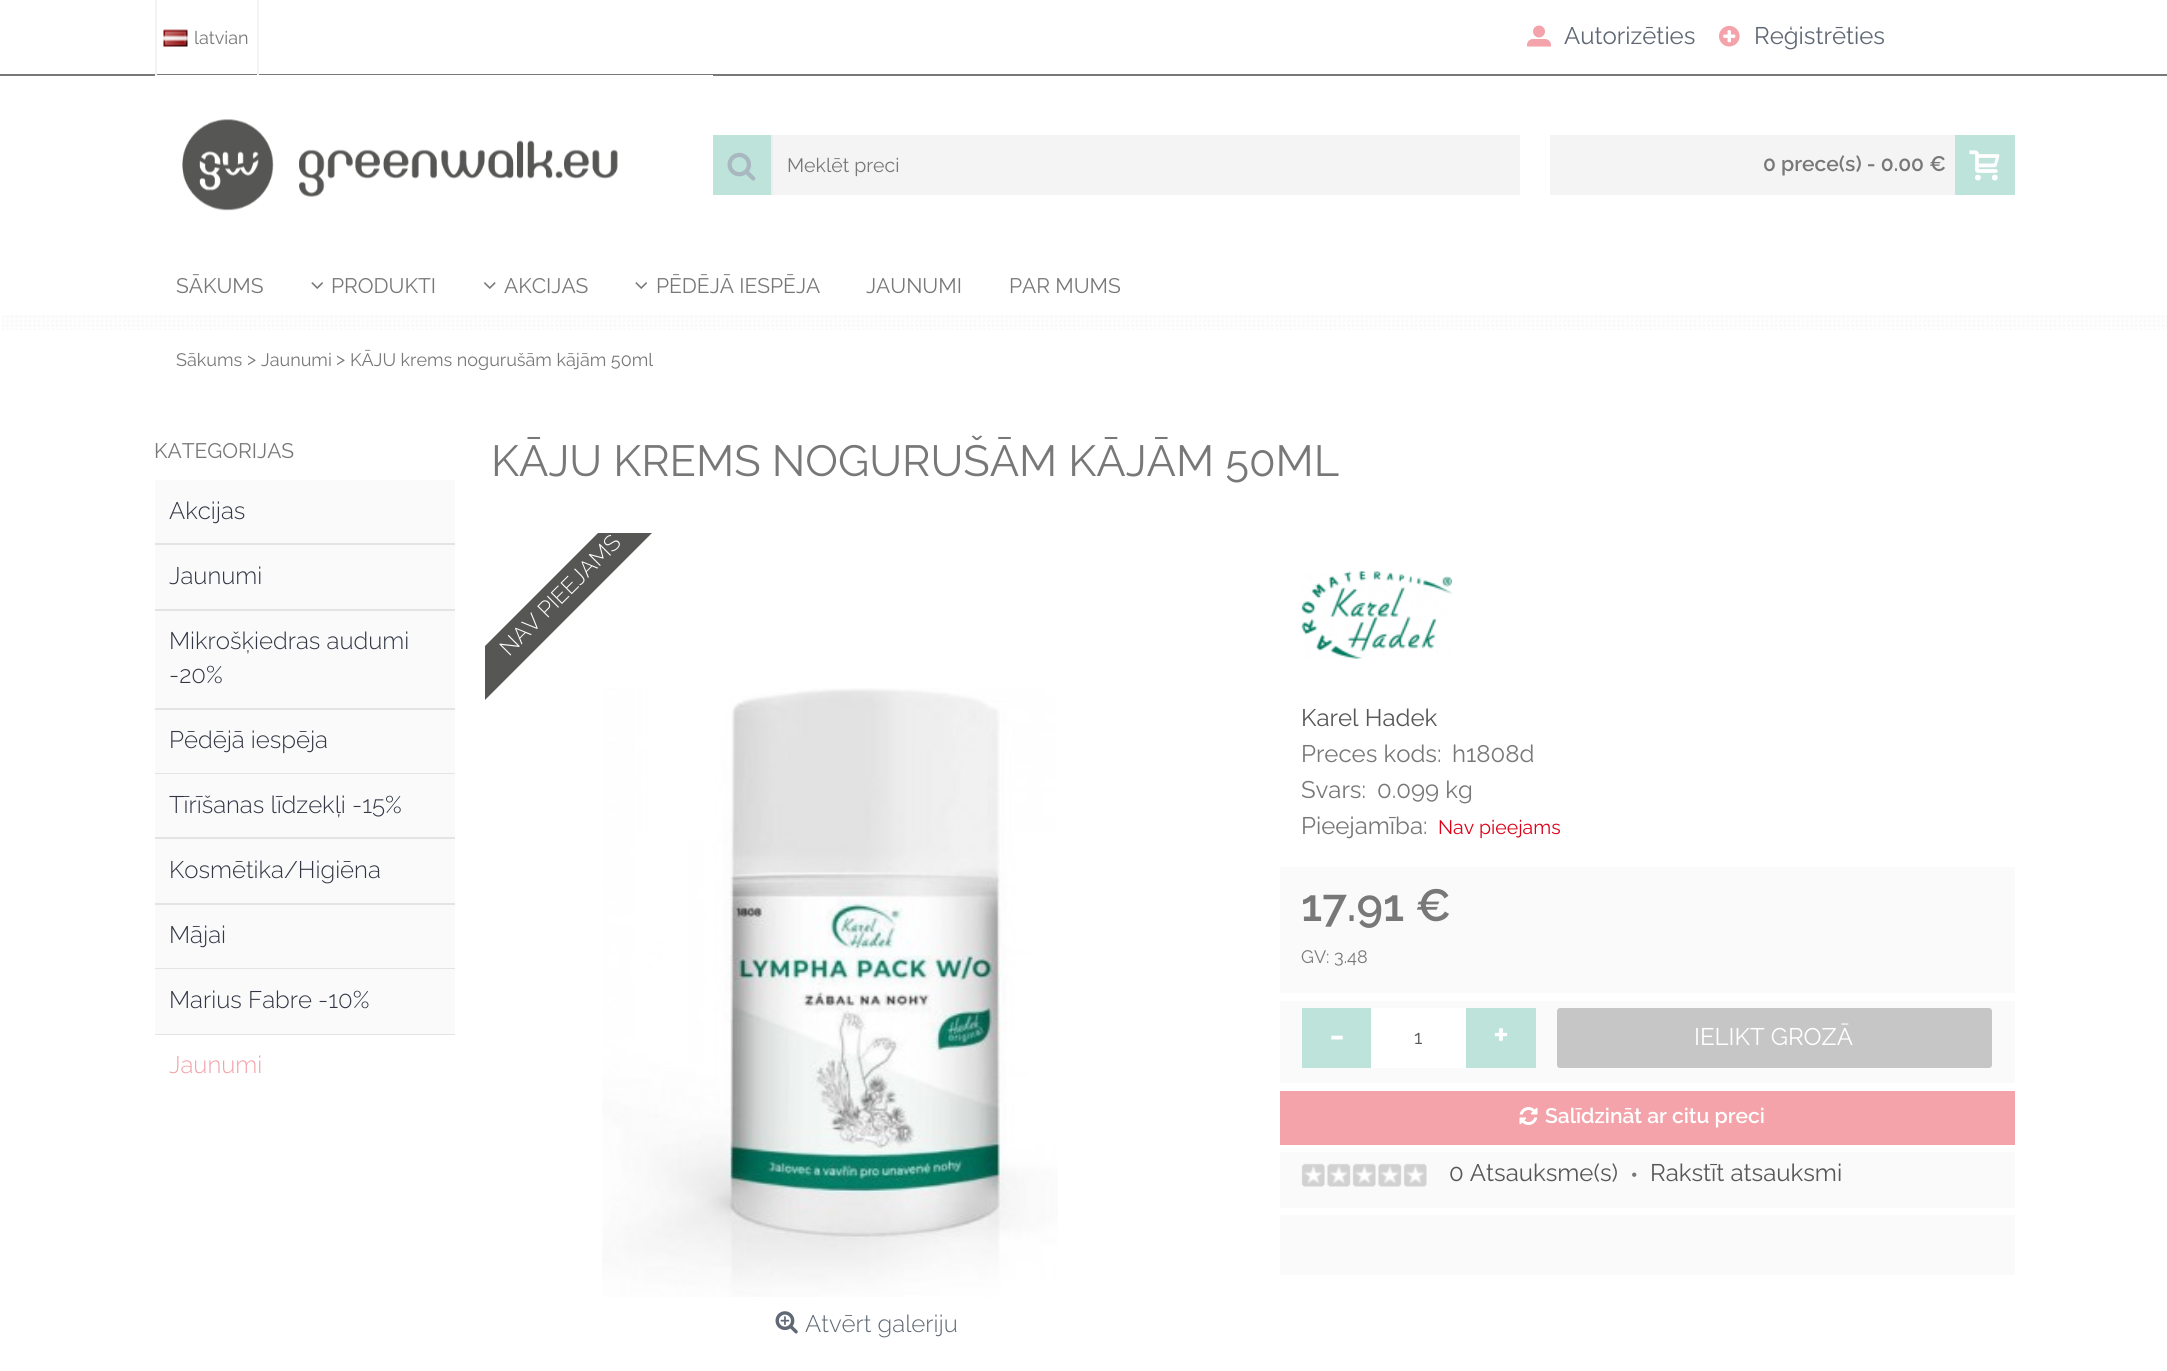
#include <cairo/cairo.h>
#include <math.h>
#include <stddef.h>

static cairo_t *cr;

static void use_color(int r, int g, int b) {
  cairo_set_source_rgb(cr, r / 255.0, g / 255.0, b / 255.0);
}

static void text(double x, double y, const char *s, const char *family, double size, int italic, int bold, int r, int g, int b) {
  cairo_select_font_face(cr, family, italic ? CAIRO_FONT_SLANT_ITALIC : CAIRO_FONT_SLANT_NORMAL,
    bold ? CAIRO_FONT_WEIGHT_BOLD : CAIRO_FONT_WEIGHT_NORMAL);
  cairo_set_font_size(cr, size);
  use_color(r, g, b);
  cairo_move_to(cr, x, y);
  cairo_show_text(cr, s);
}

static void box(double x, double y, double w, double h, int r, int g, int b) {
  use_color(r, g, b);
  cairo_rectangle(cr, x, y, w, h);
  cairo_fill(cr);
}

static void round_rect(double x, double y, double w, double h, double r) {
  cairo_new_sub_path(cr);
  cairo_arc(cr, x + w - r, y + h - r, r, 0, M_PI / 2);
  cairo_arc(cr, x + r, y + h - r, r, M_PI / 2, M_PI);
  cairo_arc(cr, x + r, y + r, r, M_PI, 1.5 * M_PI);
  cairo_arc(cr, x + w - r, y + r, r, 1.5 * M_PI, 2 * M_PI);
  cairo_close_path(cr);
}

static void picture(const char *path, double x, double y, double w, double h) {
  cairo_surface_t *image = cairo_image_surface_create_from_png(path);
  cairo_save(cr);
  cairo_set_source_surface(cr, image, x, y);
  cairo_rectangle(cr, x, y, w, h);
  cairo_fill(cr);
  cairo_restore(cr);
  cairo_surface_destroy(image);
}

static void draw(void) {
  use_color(255, 255, 255);
  cairo_paint(cr);
  picture("img_01.png", 2, 315, 2165, 15);
  box(0, 74, 2167, 2, 120, 120, 121);
  box(257, 0, 2, 75, 244, 244, 244);
  box(155, 0, 2, 75, 244, 244, 244);
  picture("img_02.png", 163, 29, 25, 18);
  picture("img_03.png", 1527, 25, 24, 22);
  picture("img_04.png", 1719, 25, 21, 22);
  box(155, 75, 558, 1, 255, 255, 255);
  picture("img_05.png", 182, 119, 436, 92);
  box(713, 135, 58, 60, 189, 227, 218);
  box(771, 135, 2, 60, 238, 238, 238);
  picture("img_06.png", 727, 152, 29, 29);
  box(773, 135, 747, 60, 244, 244, 244);
  box(1550, 135, 405, 60, 244, 244, 244);
  box(1955, 135, 60, 60, 189, 227, 218);
  picture("img_07.png", 1969, 150, 31, 31);
  picture("img_08.png", 311, 282, 12, 7);
  picture("img_09.png", 484, 282, 12, 7);
  picture("img_08.png", 635, 282, 12, 7);
  box(155, 480, 300, 488, 250, 250, 250);
  box(155, 543, 300, 2, 228, 228, 228);
  box(155, 609, 300, 2, 228, 228, 228);
  box(155, 708, 300, 2, 228, 228, 228);
  box(155, 773, 300, 1, 228, 228, 228);
  box(155, 837, 300, 2, 228, 228, 228);
  box(155, 903, 300, 2, 228, 228, 228);
  box(155, 968, 300, 1, 228, 228, 228);
  box(155, 969, 300, 65, 250, 250, 250);
  box(155, 1034, 300, 1, 228, 228, 228);
  picture("img_10.png", 602, 688, 456, 609);
  cairo_save(cr);
  cairo_rectangle(cr, 485, 533, 1530, 823);
  cairo_clip(cr);
  use_color(86, 86, 85);
  cairo_new_path(cr);
  cairo_move_to(cr, 428, 703);
  cairo_line_to(cr, 668, 463);
  cairo_line_to(cr, 695, 490);
  cairo_line_to(cr, 455, 730);
  cairo_close_path(cr);
  cairo_fill(cr);
  cairo_restore(cr);
  picture("img_11.png", 775, 1311, 23, 23);
  picture("img_12.png", 1301, 571, 151, 88);
  box(1280, 867, 735, 126, 250, 250, 250);
  box(1280, 1001, 735, 82, 250, 250, 250);
  box(1302, 1008, 69, 60, 189, 227, 218);
  box(1371, 1008, 95, 60, 255, 255, 255);
  box(1466, 1008, 70, 60, 189, 227, 218);
  use_color(198, 198, 198);
  round_rect(1557, 1008, 435, 60, 3);
  cairo_fill(cr);
  box(1280, 1091, 735, 54, 243, 163, 169);
  picture("img_13.png", 1519, 1107, 19, 18);
  box(1280, 1152, 735, 56, 250, 250, 250);
  picture("img_14.png", 1301, 1163, 126, 24);
  box(1280, 1215, 735, 60, 250, 250, 250);
  text(194, 44, "latvian", "Raleway", 18, 0, 0, 120, 120, 121);
  text(1564, 44, "Autorizēties", "Raleway", 24, 0, 0, 95, 104, 116);
  text(1754, 44, "Reģistrēties", "Raleway", 24, 0, 0, 95, 104, 116);
  text(787, 172, "Meklēt preci", "Raleway", 19.5, 0, 0, 120, 120, 121);
  text(1763, 171, "0 prece(s) - 0.00 €", "Raleway SemiBold", 21, 0, 0, 120, 120, 121);
  text(176, 293, "SĀKUMS", "Raleway", 21, 0, 0, 120, 120, 121);
  text(331, 293, "PRODUKTI", "Raleway", 21, 0, 0, 120, 120, 121);
  text(504, 293, "AKCIJAS", "Raleway", 21, 0, 0, 120, 120, 121);
  text(656, 293, "PĒDĒJĀ IESPĒJA", "Raleway", 21, 0, 0, 120, 120, 121);
  text(866, 293, "JAUNUMI", "Raleway", 21, 0, 0, 120, 120, 121);
  text(1009, 293, "PAR MUMS", "Raleway", 21, 0, 0, 120, 120, 121);
  text(176, 366, "Sākums", "Raleway", 18, 0, 0, 120, 120, 121);
  text(247, 365, ">", "Raleway", 18, 0, 0, 120, 120, 121);
  text(261, 366, "Jaunumi", "Raleway", 18, 0, 0, 120, 120, 121);
  text(336, 365, ">", "Raleway", 18, 0, 0, 120, 120, 121);
  text(350, 366, "KĀJU krems nogurušām kājām 50ml", "Raleway", 18, 0, 0, 120, 120, 121);
  text(154, 458, "KATEGORIJAS", "Raleway", 21, 0, 0, 120, 120, 121);
  text(169, 519, "Akcijas", "Raleway Light", 24, 0, 0, 51, 55, 69);
  text(169, 584, "Jaunumi", "Raleway Light", 24, 0, 0, 51, 55, 69);
  text(169, 649, "Mikrošķiedras audumi", "Raleway Light", 24, 0, 0, 51, 55, 69);
  text(169, 683, "-20%", "Raleway Light", 24, 0, 0, 51, 55, 69);
  text(169, 748, "Pēdējā iespēja", "Raleway Light", 24, 0, 0, 51, 55, 69);
  text(169, 813, "Tīrīšanas līdzekļi -15%", "Raleway Light", 24, 0, 0, 51, 55, 69);
  text(169, 878, "Kosmētika/Higiēna", "Raleway Light", 24, 0, 0, 51, 55, 69);
  text(169, 943, "Mājai", "Raleway Light", 24, 0, 0, 51, 55, 69);
  text(169, 1008, "Marius Fabre -10%", "Raleway Light", 24, 0, 0, 51, 55, 69);
  text(169, 1073, "Jaunumi", "Raleway Light", 24, 0, 0, 243, 163, 169);
  text(491, 476, "KĀJU KREMS NOGURUŠĀM KĀJĀM 50ML", "Raleway", 43.5, 0, 0, 120, 120, 121);
  cairo_save(cr);
  cairo_translate(cr, 509, 657);
  cairo_rotate(cr, -45 * M_PI / 180);
  text(0, 0, "NAV PIEEJAMS", "Raleway Light", 22.5, 0, 0, 255, 255, 255);
  cairo_restore(cr);
  text(805, 1332, "Atvērt galeriju", "Raleway Light", 24, 0, 0, 95, 104, 116);
  text(1301, 726, "Karel Hadek", "Raleway", 24, 0, 0, 88, 88, 89);
  text(1301, 762, "Preces kods:", "Raleway", 24, 0, 0, 120, 120, 121);
  text(1452, 762, "h1808d", "Raleway", 24, 0, 0, 120, 120, 121);
  text(1301, 798, "Svars:", "Raleway", 24, 0, 0, 120, 120, 121);
  text(1377, 798, "0.099 kg", "Raleway", 24, 0, 0, 120, 120, 121);
  text(1301, 834, "Pieejamība:", "Raleway", 24, 0, 0, 120, 120, 121);
  text(1438, 834, "Nav pieejams", "Raleway", 19.5, 0, 0, 221, 0, 23);
  text(1301, 921, "17.91 €", "Raleway SemiBold", 45, 0, 0, 120, 120, 121);
  text(1301, 963, "GV: 3.48", "Raleway", 18, 0, 0, 120, 120, 121);
  text(1329, 1048, "-", "Raleway SemiBold", 38, 0, 0, 255, 255, 255);
  text(1414, 1044, "1", "Raleway", 19.5, 0, 0, 88, 88, 89);
  text(1493, 1048, "+", "Raleway SemiBold", 38, 0, 0, 255, 255, 255);
  text(1694, 1045, "IELIKT GROZĀ", "Raleway", 24, 0, 0, 255, 255, 255);
  text(1545, 1123, "Salīdzināt ar citu preci", "Raleway SemiBold", 21, 0, 0, 255, 255, 255);
  text(1449, 1181, "0 Atsauksme(s)", "Raleway", 24, 0, 0, 88, 88, 89);
  text(1630, 1183, "•", "Raleway", 24, 0, 0, 120, 120, 121);
  text(1650, 1181, "Rakstīt atsauksmi", "Raleway", 24, 0, 0, 88, 88, 89);
}

int main(void) {
  cairo_surface_t *surface = cairo_image_surface_create(CAIRO_FORMAT_RGB24, 2167, 1371);
  cr = cairo_create(surface);
  cairo_font_options_t *options = cairo_font_options_create();
  cairo_font_options_set_hint_metrics(options, CAIRO_HINT_METRICS_OFF);
  cairo_font_options_set_hint_style(options, CAIRO_HINT_STYLE_NONE);
  cairo_set_font_options(cr, options);
  cairo_set_miter_limit(cr, 4);
  draw();
  cairo_surface_write_to_png(surface, "out.png");
  cairo_font_options_destroy(options);
  cairo_destroy(cr);
  cairo_surface_destroy(surface);
  return 0;
}
